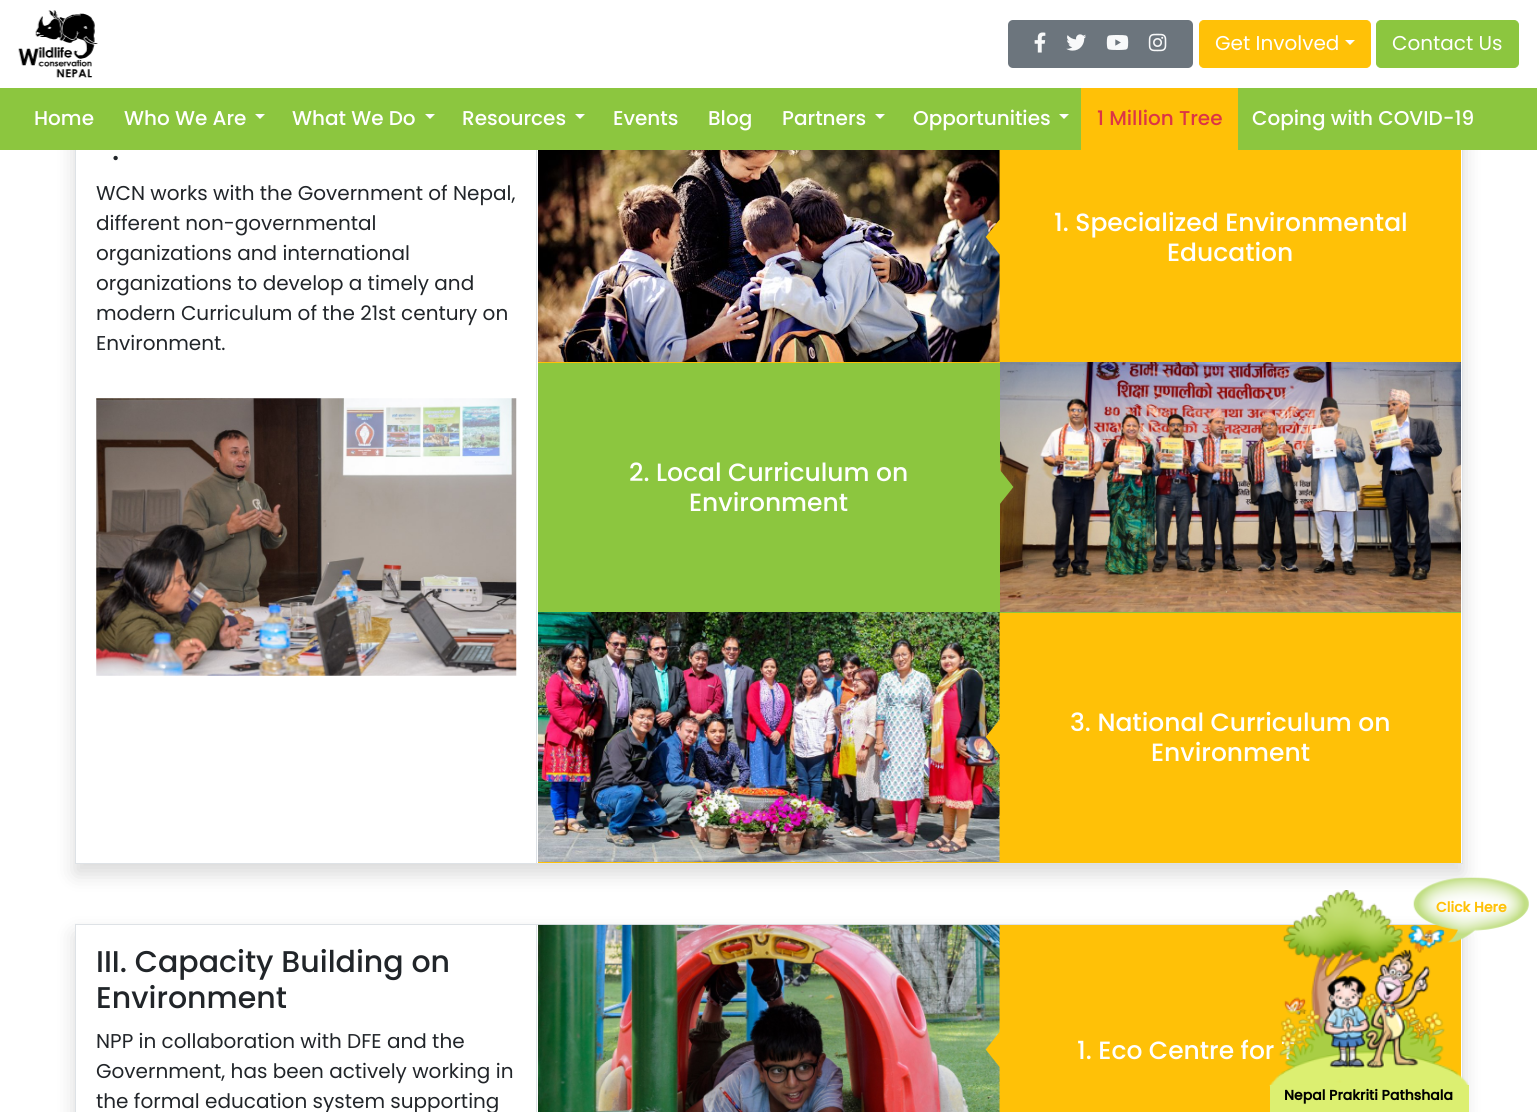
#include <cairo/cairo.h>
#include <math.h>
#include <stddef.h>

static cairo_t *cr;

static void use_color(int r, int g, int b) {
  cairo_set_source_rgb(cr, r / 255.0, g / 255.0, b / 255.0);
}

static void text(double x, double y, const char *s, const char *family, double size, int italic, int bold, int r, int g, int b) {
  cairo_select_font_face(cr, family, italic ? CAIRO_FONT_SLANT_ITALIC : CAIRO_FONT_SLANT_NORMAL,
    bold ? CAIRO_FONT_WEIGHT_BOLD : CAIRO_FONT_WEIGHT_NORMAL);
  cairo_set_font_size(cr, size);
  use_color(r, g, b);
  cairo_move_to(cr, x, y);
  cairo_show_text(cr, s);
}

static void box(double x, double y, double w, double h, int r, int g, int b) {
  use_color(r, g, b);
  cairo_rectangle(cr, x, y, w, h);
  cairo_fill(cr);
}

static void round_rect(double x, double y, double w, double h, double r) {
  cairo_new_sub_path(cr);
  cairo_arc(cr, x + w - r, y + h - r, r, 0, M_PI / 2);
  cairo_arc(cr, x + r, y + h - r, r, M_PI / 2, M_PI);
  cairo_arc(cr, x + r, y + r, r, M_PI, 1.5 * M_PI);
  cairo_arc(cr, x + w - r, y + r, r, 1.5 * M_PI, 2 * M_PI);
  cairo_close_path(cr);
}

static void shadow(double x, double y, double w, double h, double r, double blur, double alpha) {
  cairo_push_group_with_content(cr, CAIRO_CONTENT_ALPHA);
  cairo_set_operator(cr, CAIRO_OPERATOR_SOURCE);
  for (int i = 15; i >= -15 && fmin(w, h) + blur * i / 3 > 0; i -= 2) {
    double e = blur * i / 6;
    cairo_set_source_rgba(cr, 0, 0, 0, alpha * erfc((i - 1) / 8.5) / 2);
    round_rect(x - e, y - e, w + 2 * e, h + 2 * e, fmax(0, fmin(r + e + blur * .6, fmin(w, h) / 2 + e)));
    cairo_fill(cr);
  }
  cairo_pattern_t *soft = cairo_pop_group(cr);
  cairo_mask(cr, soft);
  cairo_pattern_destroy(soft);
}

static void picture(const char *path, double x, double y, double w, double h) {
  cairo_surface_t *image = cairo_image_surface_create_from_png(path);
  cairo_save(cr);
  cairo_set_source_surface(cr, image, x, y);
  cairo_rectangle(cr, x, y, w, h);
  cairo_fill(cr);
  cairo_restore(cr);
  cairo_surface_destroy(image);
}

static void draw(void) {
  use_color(255, 255, 255);
  cairo_paint(cr);
  picture("img_01.png", 18, 10, 80, 68);
  use_color(108, 117, 125);
  round_rect(1008, 20, 185, 48, 5);
  cairo_fill(cr);
  picture("img_02.png", 1034, 32, 12, 21);
  picture("img_03.png", 1066, 34, 20, 17);
  picture("img_04.png", 1106, 35, 23, 15);
  picture("img_05.png", 1148, 33, 19, 19);
  use_color(255, 193, 7);
  round_rect(1199.5, 20.5, 171, 47, 4.5);
  cairo_fill_preserve(cr);
  cairo_set_line_width(cr, 1);
  cairo_stroke(cr);
  use_color(255, 255, 255);
  cairo_new_path(cr);
  cairo_move_to(cr, 1345, 40);
  cairo_line_to(cr, 1355, 40);
  cairo_line_to(cr, 1350, 45);
  cairo_close_path(cr);
  cairo_fill(cr);
  use_color(140, 198, 63);
  round_rect(1376.5, 20.5, 142, 47, 4.5);
  cairo_fill_preserve(cr);
  cairo_stroke(cr);
  cairo_save(cr);
  cairo_set_fill_rule(cr, CAIRO_FILL_RULE_EVEN_ODD);
  cairo_new_path(cr);
  cairo_move_to(cr, 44, 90);
  cairo_line_to(cr, 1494, 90);
  cairo_line_to(cr, 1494, 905);
  cairo_line_to(cr, 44, 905);
  cairo_close_path(cr);
  cairo_move_to(cr, 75, 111);
  cairo_line_to(cr, 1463, 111);
  cairo_line_to(cr, 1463, 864);
  cairo_line_to(cr, 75, 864);
  cairo_close_path(cr);
  cairo_clip(cr);
  use_color(0, 0, 0);
  shadow(75, 121, 1388, 753, 0, 10, 0.15);
  cairo_restore(cr);
  cairo_rectangle(cr, 75.5, 111.5, 1387, 752);
  use_color(222, 226, 230);
  cairo_stroke(cr);
  box(0, 88, 1537, 62, 140, 198, 63);
  use_color(255, 255, 255);
  cairo_new_path(cr);
  cairo_move_to(cr, 255, 114);
  cairo_line_to(cr, 265, 114);
  cairo_line_to(cr, 260, 119);
  cairo_close_path(cr);
  cairo_fill(cr);
  cairo_new_path(cr);
  cairo_move_to(cr, 425, 114);
  cairo_line_to(cr, 435, 114);
  cairo_line_to(cr, 430, 119);
  cairo_close_path(cr);
  cairo_fill(cr);
  cairo_new_path(cr);
  cairo_move_to(cr, 575, 114);
  cairo_line_to(cr, 585, 114);
  cairo_line_to(cr, 580, 119);
  cairo_close_path(cr);
  cairo_fill(cr);
  cairo_new_path(cr);
  cairo_move_to(cr, 875, 114);
  cairo_line_to(cr, 885, 114);
  cairo_line_to(cr, 880, 119);
  cairo_close_path(cr);
  cairo_fill(cr);
  cairo_new_path(cr);
  cairo_move_to(cr, 1059, 114);
  cairo_line_to(cr, 1069, 114);
  cairo_line_to(cr, 1064, 119);
  cairo_close_path(cr);
  cairo_fill(cr);
  box(1081, 88, 157, 62, 255, 193, 7);
  box(536, 150, 1, 713, 222, 226, 230);
  picture("img_06.png", 96, 398, 421, 278);
  box(538, 150, 923, 213, 255, 193, 7);
  picture("img_07.png", 538, 150, 462, 212);
  box(538, 363, 923, 250, 140, 198, 63);
  picture("img_08.png", 1000, 362, 461, 250);
  box(538, 613, 923, 250, 255, 193, 7);
  picture("img_09.png", 538, 612, 462, 250);
  cairo_save(cr);
  cairo_set_fill_rule(cr, CAIRO_FILL_RULE_EVEN_ODD);
  cairo_new_path(cr);
  cairo_move_to(cr, 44, 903);
  cairo_line_to(cr, 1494, 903);
  cairo_line_to(cr, 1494, 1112);
  cairo_line_to(cr, 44, 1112);
  cairo_close_path(cr);
  cairo_move_to(cr, 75, 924);
  cairo_line_to(cr, 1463, 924);
  cairo_line_to(cr, 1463, 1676);
  cairo_line_to(cr, 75, 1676);
  cairo_close_path(cr);
  cairo_clip(cr);
  use_color(0, 0, 0);
  shadow(75, 934, 1388, 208, 0, 10, 0.15);
  cairo_restore(cr);
  cairo_rectangle(cr, 75.5, 924.5, 1387, 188);
  use_color(222, 226, 230);
  cairo_stroke(cr);
  box(536, 925, 1, 187, 222, 226, 230);
  box(985, 925, 476, 187, 255, 193, 7);
  picture("img_10.png", 538, 924, 462, 188);
  box(1270, 1085, 199, 27, 220, 239, 113);
  text(1215, 50, "Get Involved", "Poppins", 20, 0, 0, 255, 255, 255);
  text(1392, 50, "Contact Us", "Poppins", 20, 0, 0, 255, 255, 255);
  text(34, 125, "Home", "Poppins Medium", 20, 0, 0, 255, 255, 255);
  text(124, 125, "Who We Are", "Poppins Medium", 20, 0, 0, 255, 255, 255);
  text(292, 125, "What We Do", "Poppins Medium", 20, 0, 0, 255, 255, 255);
  text(462, 125, "Resources", "Poppins Medium", 20, 0, 0, 255, 255, 255);
  text(613, 125, "Events", "Poppins Medium", 20, 0, 0, 255, 255, 255);
  text(708, 125, "Blog", "Poppins Medium", 20, 0, 0, 255, 255, 255);
  text(782, 125, "Partners", "Poppins Medium", 20, 0, 0, 255, 255, 255);
  text(913, 125, "Opportunities", "Poppins Medium", 20, 0, 0, 255, 255, 255);
  text(1097, 125, "1 Million Tree", "Poppins Medium", 20, 0, 0, 220, 53, 69);
  text(1252, 125, "Coping with COVID-19", "Poppins Medium", 20, 0, 0, 255, 255, 255);
  text(112, 160, ".", "Poppins Medium", 30, 0, 0, 33, 37, 41);
  text(96, 200, "WCN works with the Government of Nepal,", "Poppins", 20, 0, 0, 33, 37, 41);
  text(96, 230, "different non-governmental", "Poppins", 20, 0, 0, 33, 37, 41);
  text(96, 260, "organizations and international", "Poppins", 20, 0, 0, 33, 37, 41);
  text(96, 290, "organizations to develop a timely and", "Poppins", 20, 0, 0, 33, 37, 41);
  text(96, 320, "modern Curriculum of the 21st century on", "Poppins", 20, 0, 0, 33, 37, 41);
  text(96, 350, "Environment.", "Poppins", 20, 0, 0, 33, 37, 41);
  text(1054, 231, "1. Specialized Environmental", "Poppins Medium", 25, 0, 0, 255, 255, 255);
  text(1167, 261, "Education", "Poppins Medium", 25, 0, 0, 255, 255, 255);
  text(629, 481, "2. Local Curriculum on", "Poppins Medium", 25, 0, 0, 255, 255, 255);
  text(689, 511, "Environment", "Poppins Medium", 25, 0, 0, 255, 255, 255);
  text(1070, 731, "3. National Curriculum on", "Poppins Medium", 25, 0, 0, 255, 255, 255);
  text(1151, 761, "Environment", "Poppins Medium", 25, 0, 0, 255, 255, 255);
  text(96, 972, "III. Capacity Building on", "Poppins Medium", 30, 0, 0, 33, 37, 41);
  text(96, 1008, "Environment", "Poppins Medium", 30, 0, 0, 33, 37, 41);
  text(96, 1048, "NPP in collaboration with DFE and the", "Poppins", 20, 0, 0, 33, 37, 41);
  text(96, 1078, "Government, has been actively working in", "Poppins", 20, 0, 0, 33, 37, 41);
  text(96, 1108, "the formal education system supporting", "Poppins", 20, 0, 0, 33, 37, 41);
  text(1077, 1059, "1. Eco Centre for T", "Poppins Medium", 25, 0, 0, 255, 255, 255);
  picture("img_11.png", 1269, 890, 200, 197);
  picture("img_12.png", 1413, 877, 116, 66);
  text(1436, 912, "Click Here", "Poppins", 14, 0, 1, 255, 193, 7);
  text(1284, 1100, "Nepal Prakriti Pathshala", "Poppins", 14, 0, 1, 0, 0, 0);
}

int main(void) {
  cairo_surface_t *surface = cairo_image_surface_create(CAIRO_FORMAT_RGB24, 1537, 1112);
  cr = cairo_create(surface);
  cairo_font_options_t *options = cairo_font_options_create();
  cairo_font_options_set_hint_metrics(options, CAIRO_HINT_METRICS_OFF);
  cairo_font_options_set_hint_style(options, CAIRO_HINT_STYLE_NONE);
  cairo_set_font_options(cr, options);
  cairo_set_miter_limit(cr, 4);
  draw();
  cairo_surface_write_to_png(surface, "out.png");
  cairo_font_options_destroy(options);
  cairo_destroy(cr);
  cairo_surface_destroy(surface);
  return 0;
}
